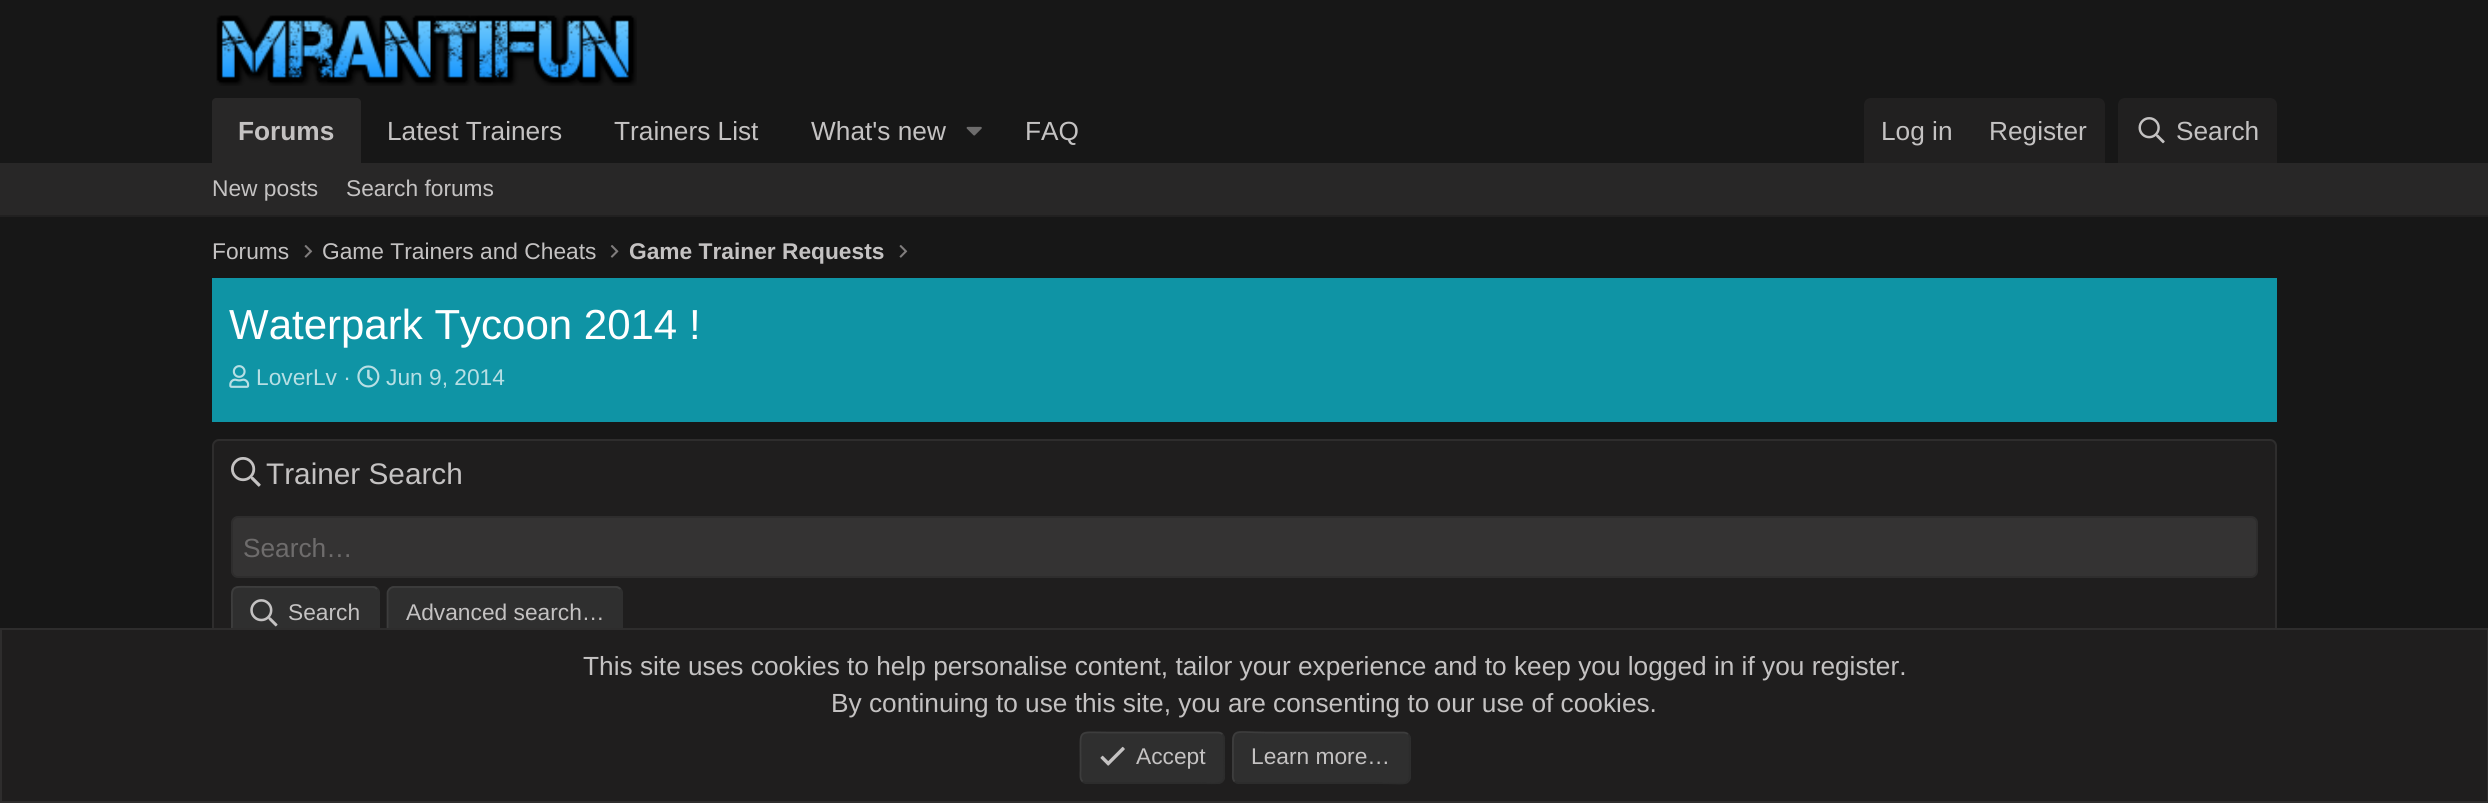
#include <cairo/cairo.h>
#include <math.h>
#include <stddef.h>

static cairo_t *cr;

static void use_color(int r, int g, int b) {
  cairo_set_source_rgb(cr, r / 255.0, g / 255.0, b / 255.0);
}

static void text(double x, double y, const char *s, const char *family, double size, int italic, int bold, int r, int g, int b) {
  cairo_select_font_face(cr, family, italic ? CAIRO_FONT_SLANT_ITALIC : CAIRO_FONT_SLANT_NORMAL,
    bold ? CAIRO_FONT_WEIGHT_BOLD : CAIRO_FONT_WEIGHT_NORMAL);
  cairo_set_font_size(cr, size);
  use_color(r, g, b);
  cairo_move_to(cr, x, y);
  cairo_show_text(cr, s);
}

static void box(double x, double y, double w, double h, int r, int g, int b) {
  use_color(r, g, b);
  cairo_rectangle(cr, x, y, w, h);
  cairo_fill(cr);
}

static void round_rect(double x, double y, double w, double h, double r) {
  cairo_new_sub_path(cr);
  cairo_arc(cr, x + w - r, y + h - r, r, 0, M_PI / 2);
  cairo_arc(cr, x + r, y + h - r, r, M_PI / 2, M_PI);
  cairo_arc(cr, x + r, y + r, r, M_PI, 1.5 * M_PI);
  cairo_arc(cr, x + w - r, y + r, r, 1.5 * M_PI, 2 * M_PI);
  cairo_close_path(cr);
}

static void picture(const char *path, double x, double y, double w, double h) {
  cairo_surface_t *image = cairo_image_surface_create_from_png(path);
  cairo_save(cr);
  cairo_set_source_surface(cr, image, x, y);
  cairo_rectangle(cr, x, y, w, h);
  cairo_fill(cr);
  cairo_restore(cr);
  cairo_surface_destroy(image);
}

static void draw(void) {
  use_color(23, 23, 23);
  cairo_paint(cr);
  picture("img_01.png", 216, 15, 421, 71);
  use_color(40, 39, 39);
  cairo_new_path(cr);
  cairo_move_to(cr, 216, 98);
  cairo_line_to(cr, 357, 98);
  cairo_curve_to(cr, 359, 98, 361, 100, 361, 102);
  cairo_line_to(cr, 361, 163);
  cairo_line_to(cr, 212, 163);
  cairo_line_to(cr, 212, 102);
  cairo_curve_to(cr, 212, 100, 214, 98, 216, 98);
  cairo_close_path(cr);
  cairo_fill(cr);
  picture("img_02.png", 966, 126, 16, 10);
  use_color(33, 32, 32);
  cairo_new_path(cr);
  cairo_move_to(cr, 1871, 98);
  cairo_line_to(cr, 2098, 98);
  cairo_curve_to(cr, 2102, 98, 2105, 101, 2105, 105);
  cairo_line_to(cr, 2105, 163);
  cairo_line_to(cr, 1864, 163);
  cairo_line_to(cr, 1864, 105);
  cairo_curve_to(cr, 1864, 101, 1867, 98, 1871, 98);
  cairo_close_path(cr);
  cairo_fill(cr);
  cairo_new_path(cr);
  cairo_move_to(cr, 2125, 98);
  cairo_line_to(cr, 2270, 98);
  cairo_curve_to(cr, 2274, 98, 2277, 101, 2277, 105);
  cairo_line_to(cr, 2277, 163);
  cairo_line_to(cr, 2118, 163);
  cairo_line_to(cr, 2118, 105);
  cairo_curve_to(cr, 2118, 101, 2121, 98, 2125, 98);
  cairo_close_path(cr);
  cairo_fill(cr);
  picture("img_03.png", 2138, 117, 27, 27);
  box(0, 163, 2488, 52, 40, 39, 39);
  box(0, 215, 2488, 2, 33, 32, 32);
  picture("img_04.png", 304, 245, 9, 13);
  picture("img_05.png", 610, 245, 9, 13);
  picture("img_04.png", 899, 245, 9, 13);
  box(212, 278, 2065, 144, 15, 148, 165);
  picture("img_06.png", 229, 365, 21, 23);
  picture("img_07.png", 357, 365, 23, 23);
  use_color(31, 30, 30);
  round_rect(213, 440, 2063, 210, 6);
  cairo_fill_preserve(cr);
  use_color(46, 45, 45);
  cairo_stroke(cr);
  picture("img_08.png", 231, 457, 30, 30);
  use_color(52, 51, 51);
  round_rect(232, 517, 2025, 60, 6);
  cairo_fill_preserve(cr);
  use_color(46, 45, 45);
  cairo_stroke(cr);
  use_color(47, 47, 47);
  round_rect(231, 586, 149, 53, 7);
  cairo_fill(cr);
  cairo_new_path(cr);
  cairo_move_to(cr, 233.5, 636);
  cairo_curve_to(cr, 231, 633.5, 232, 628.5, 232, 625.5);
  cairo_line_to(cr, 232, 612.5);
  cairo_curve_to(cr, 232, 582.5, 228, 587, 260.5, 587);
  cairo_line_to(cr, 373, 587);
  cairo_curve_to(cr, 374.5, 587, 376, 588, 377, 589);
  cairo_set_source_rgba(cr, 0.271, 0.271, 0.271, 0.65);
  cairo_set_line_width(cr, 1.8);
  cairo_stroke(cr);
  picture("img_09.png", 250, 599, 28, 28);
  use_color(47, 47, 47);
  round_rect(387, 586, 236, 53, 7);
  cairo_fill(cr);
  cairo_new_path(cr);
  cairo_move_to(cr, 389.5, 636);
  cairo_curve_to(cr, 388.5, 635, 387.5, 633.5, 387.5, 632);
  cairo_line_to(cr, 387.5, 593);
  cairo_curve_to(cr, 387.5, 591.5, 388.5, 590, 389.5, 589);
  cairo_curve_to(cr, 390.5, 588, 392, 587, 394, 587);
  cairo_line_to(cr, 616, 587);
  cairo_curve_to(cr, 617.5, 587, 619, 588, 620.5, 589);
  cairo_set_source_rgba(cr, 0.271, 0.271, 0.271, 0.65);
  cairo_stroke(cr);
  use_color(31, 30, 30);
  cairo_rectangle(cr, 1, 629, 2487, 173);
  cairo_fill_preserve(cr);
  use_color(46, 45, 45);
  cairo_set_line_width(cr, 2);
  cairo_stroke(cr);
  use_color(47, 47, 47);
  round_rect(1080, 732, 145, 52, 7);
  cairo_fill(cr);
  cairo_new_path(cr);
  cairo_move_to(cr, 1222.5, 734);
  cairo_curve_to(cr, 1225, 737, 1224, 741.5, 1224, 745);
  cairo_line_to(cr, 1224, 758);
  cairo_curve_to(cr, 1224, 787.5, 1228, 783, 1196, 783);
  cairo_line_to(cr, 1087, 783);
  cairo_curve_to(cr, 1085, 783, 1083.5, 782.5, 1082.5, 781.5);
  cairo_set_source_rgba(cr, 0.169, 0.169, 0.169, 0.65);
  cairo_set_line_width(cr, 1.8);
  cairo_stroke(cr);
  cairo_new_path(cr);
  cairo_move_to(cr, 1082.5, 781.5);
  cairo_curve_to(cr, 1079.5, 778.5, 1080.5, 774, 1080.5, 770.5);
  cairo_line_to(cr, 1080.5, 758);
  cairo_curve_to(cr, 1080.5, 728, 1077, 732.5, 1108.5, 732.5);
  cairo_line_to(cr, 1218, 732.5);
  cairo_curve_to(cr, 1219.5, 732.5, 1221, 733, 1222.5, 734);
  cairo_set_source_rgba(cr, 0.271, 0.271, 0.271, 0.65);
  cairo_stroke(cr);
  picture("img_10.png", 1100, 746, 25, 20);
  use_color(47, 47, 47);
  round_rect(1232, 732, 179, 52, 7);
  cairo_fill(cr);
  cairo_new_path(cr);
  cairo_move_to(cr, 1408, 734);
  cairo_curve_to(cr, 1410.5, 737, 1409.5, 741.5, 1409.5, 745);
  cairo_line_to(cr, 1409.5, 758);
  cairo_curve_to(cr, 1409.5, 790, 1413, 783, 1376, 783);
  cairo_line_to(cr, 1239, 783);
  cairo_curve_to(cr, 1237.5, 783, 1236, 782.5, 1234.5, 781.5);
  cairo_set_source_rgba(cr, 0.169, 0.169, 0.169, 0.65);
  cairo_stroke(cr);
  cairo_new_path(cr);
  cairo_move_to(cr, 1234.5, 781.5);
  cairo_curve_to(cr, 1232, 778.5, 1233, 774, 1233, 770.5);
  cairo_line_to(cr, 1233, 758);
  cairo_curve_to(cr, 1233, 725.5, 1229.5, 732.5, 1266.5, 732.5);
  cairo_line_to(cr, 1403.5, 732.5);
  cairo_curve_to(cr, 1405, 732.5, 1406.5, 733, 1408, 734);
  cairo_set_source_rgba(cr, 0.271, 0.271, 0.271, 0.65);
  cairo_stroke(cr);
  text(238, 140, "Forums", "Liberation Sans", 26.25, 0, 1, 196, 194, 194);
  text(387, 140, "Latest Trainers", "Liberation Sans", 26.25, 0, 0, 196, 194, 194);
  text(614, 140, "Trainers List", "Liberation Sans", 26.25, 0, 0, 196, 194, 194);
  text(811, 140, "What's new", "Liberation Sans", 26.25, 0, 0, 196, 194, 194);
  text(1025, 140, "FAQ", "Liberation Sans", 26.25, 0, 0, 196, 194, 194);
  text(1881, 140, "Log in", "Liberation Sans", 26.25, 0, 0, 196, 194, 194);
  text(1989, 140, "Register", "Liberation Sans", 26.25, 0, 0, 196, 194, 194);
  text(2176, 140, "Search", "Liberation Sans", 26.25, 0, 0, 196, 194, 194);
  text(212, 196, "New posts", "Liberation Sans", 22.75, 0, 0, 196, 194, 194);
  text(346, 196, "Search forums", "Liberation Sans", 22.75, 0, 0, 196, 194, 194);
  text(212, 259, "Forums", "Liberation Sans", 22.75, 0, 0, 196, 194, 194);
  text(322, 259, "Game Trainers and Cheats", "Liberation Sans", 22.75, 0, 0, 196, 194, 194);
  text(629, 259, "Game Trainer Requests", "Liberation Sans", 22.75, 0, 1, 196, 194, 194);
  text(229, 339, "Waterpark Tycoon 2014 !", "Liberation Sans", 42, 0, 0, 255, 255, 255);
  text(256, 385, "LoverLv ·", "Liberation Sans", 22.75, 0, 0, 183, 223, 228);
  text(386, 385, "Jun 9, 2014", "Liberation Sans", 22.75, 0, 0, 183, 223, 228);
  text(266, 484, "Trainer Search", "Liberation Sans", 29.75, 0, 0, 196, 194, 194);
  text(243, 557, "Search…", "Liberation Sans", 26.25, 0, 0, 110, 108, 108);
  text(288, 620, "Search", "Liberation Sans", 22.75, 0, 0, 196, 194, 194);
  text(406, 620, "Advanced search…", "Liberation Sans", 22.75, 0, 0, 196, 194, 194);
  text(583, 675, "This site uses cookies to help personalise content, tailor your experience and to keep you logged in if you register.", "Liberation Sans", 26.25, 0, 0, 196, 194, 194);
  text(831, 712, "By continuing to use this site, you are consenting to our use of cookies.", "Liberation Sans", 26.25, 0, 0, 196, 194, 194);
  text(1136, 764, "Accept", "Liberation Sans", 22.75, 0, 0, 196, 194, 194);
  text(1251, 764, "Learn more…", "Liberation Sans", 22.75, 0, 0, 196, 194, 194);
}

int main(void) {
  cairo_surface_t *surface = cairo_image_surface_create(CAIRO_FORMAT_RGB24, 2488, 803);
  cr = cairo_create(surface);
  cairo_font_options_t *options = cairo_font_options_create();
  cairo_font_options_set_hint_metrics(options, CAIRO_HINT_METRICS_OFF);
  cairo_font_options_set_hint_style(options, CAIRO_HINT_STYLE_NONE);
  cairo_set_font_options(cr, options);
  cairo_set_miter_limit(cr, 4);
  draw();
  cairo_surface_write_to_png(surface, "out.png");
  cairo_font_options_destroy(options);
  cairo_destroy(cr);
  cairo_surface_destroy(surface);
  return 0;
}
